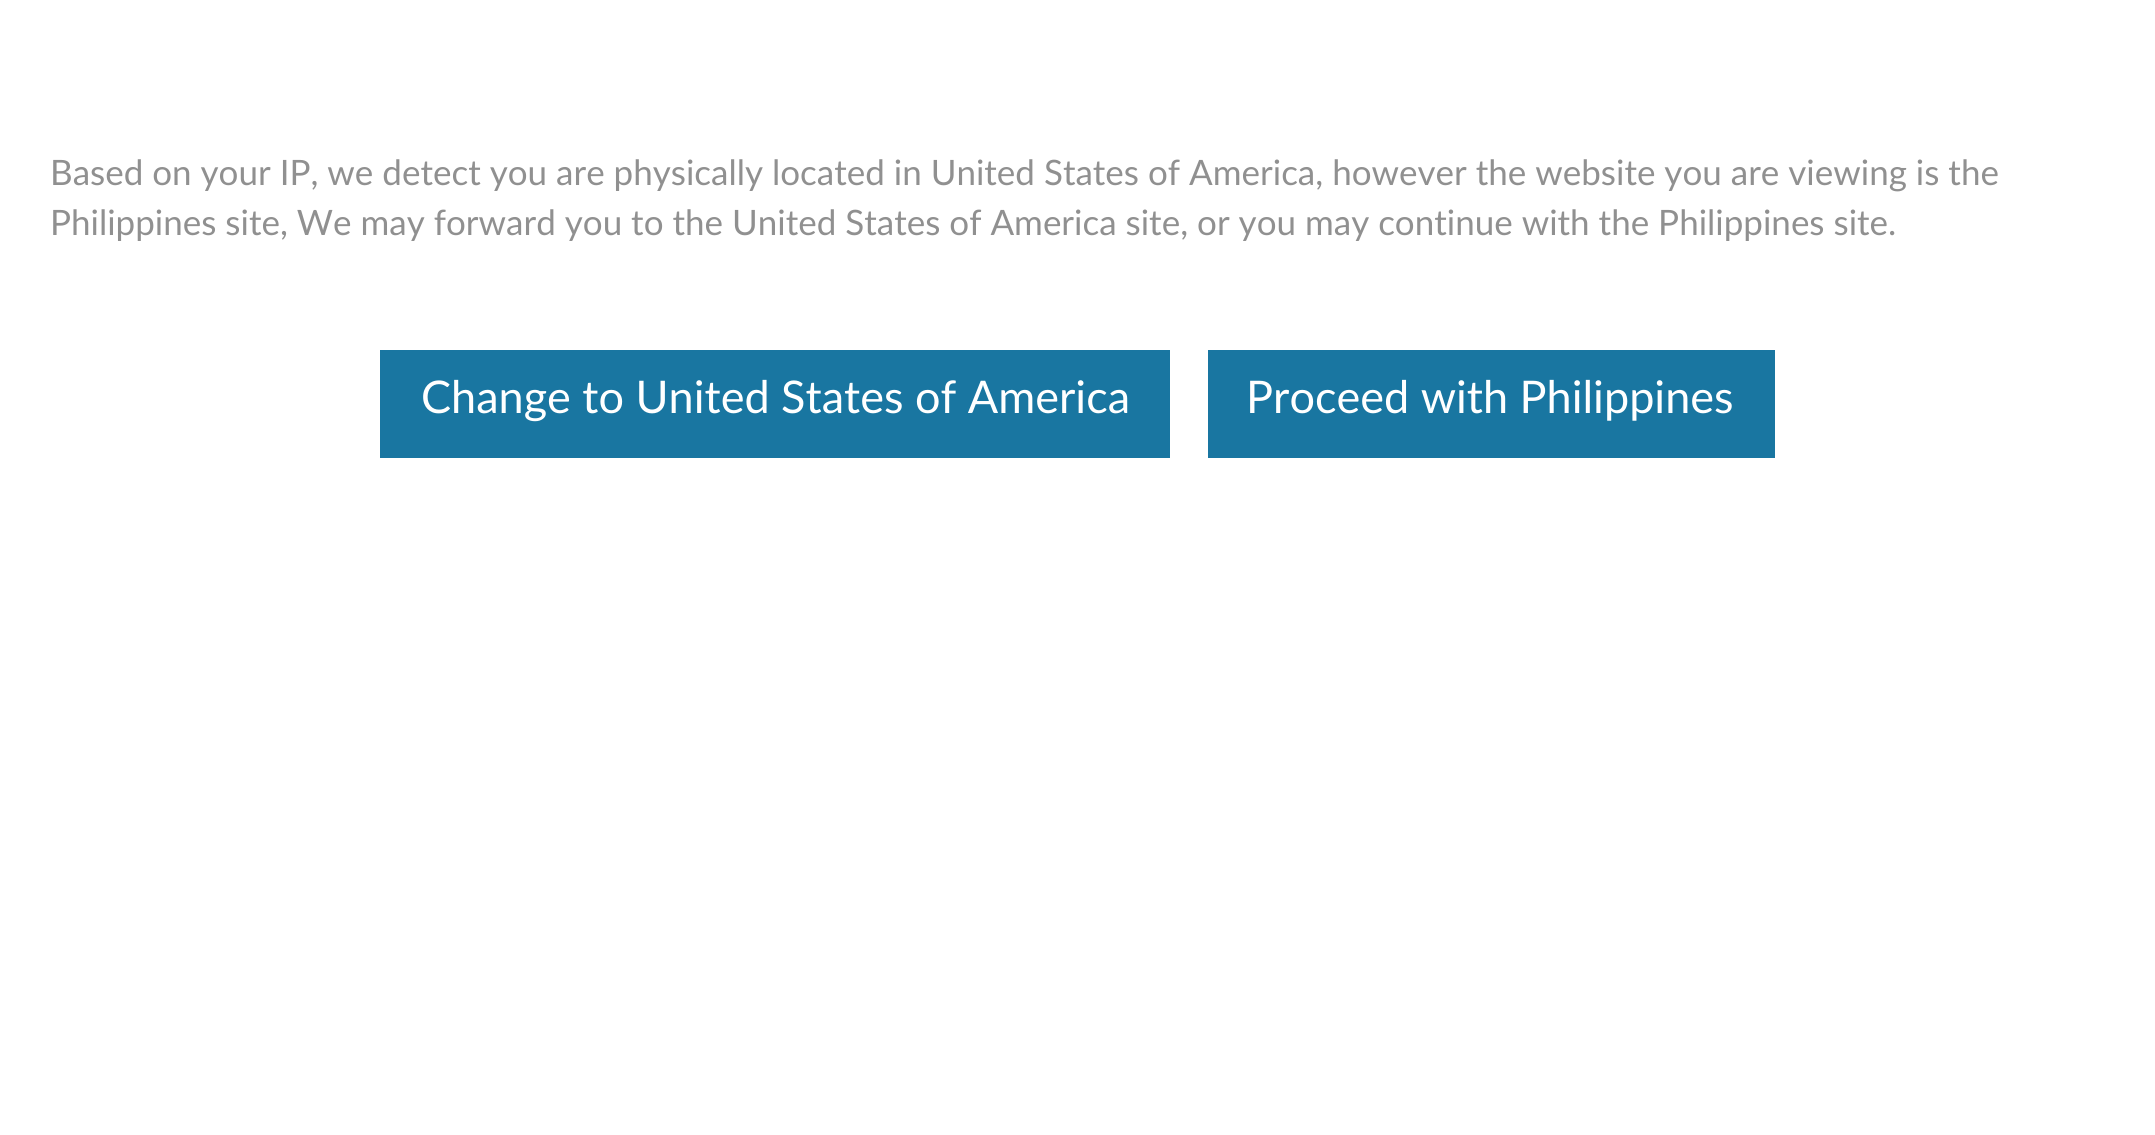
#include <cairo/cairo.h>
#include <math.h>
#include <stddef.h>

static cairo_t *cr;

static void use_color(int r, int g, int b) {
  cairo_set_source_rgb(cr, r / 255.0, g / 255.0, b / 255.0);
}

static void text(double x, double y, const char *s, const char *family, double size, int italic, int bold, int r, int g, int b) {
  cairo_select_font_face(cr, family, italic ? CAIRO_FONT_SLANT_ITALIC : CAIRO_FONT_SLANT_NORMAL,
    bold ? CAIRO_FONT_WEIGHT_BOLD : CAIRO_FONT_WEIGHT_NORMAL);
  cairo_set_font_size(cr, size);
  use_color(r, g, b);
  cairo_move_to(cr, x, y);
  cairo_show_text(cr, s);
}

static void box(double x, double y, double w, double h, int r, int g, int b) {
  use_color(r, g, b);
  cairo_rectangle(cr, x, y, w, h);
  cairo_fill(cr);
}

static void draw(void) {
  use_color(255, 255, 255);
  cairo_paint(cr);
  box(380, 350, 790, 108, 25, 118, 161);
  box(1208, 350, 567, 108, 25, 118, 161);
  text(50, 185, "Based on your IP, we detect you are physically located in United States of America, however the website you are viewing is the", "Lato", 35, 0, 0, 144, 144, 144);
  text(50, 235, "Philippines site, We may forward you to the United States of America site, or you may continue with the Philippines site.", "Lato", 35, 0, 0, 144, 144, 144);
  text(421, 413, "Change to United States of America", "Lato", 45, 0, 0, 255, 255, 255);
  text(1246, 413, "Proceed with Philippines", "Lato", 45, 0, 0, 255, 255, 255);
}

int main(void) {
  cairo_surface_t *surface = cairo_image_surface_create(CAIRO_FORMAT_RGB24, 2155, 1135);
  cr = cairo_create(surface);
  cairo_font_options_t *options = cairo_font_options_create();
  cairo_font_options_set_hint_metrics(options, CAIRO_HINT_METRICS_OFF);
  cairo_font_options_set_hint_style(options, CAIRO_HINT_STYLE_NONE);
  cairo_set_font_options(cr, options);
  cairo_set_miter_limit(cr, 4);
  draw();
  cairo_surface_write_to_png(surface, "out.png");
  cairo_font_options_destroy(options);
  cairo_destroy(cr);
  cairo_surface_destroy(surface);
  return 0;
}
